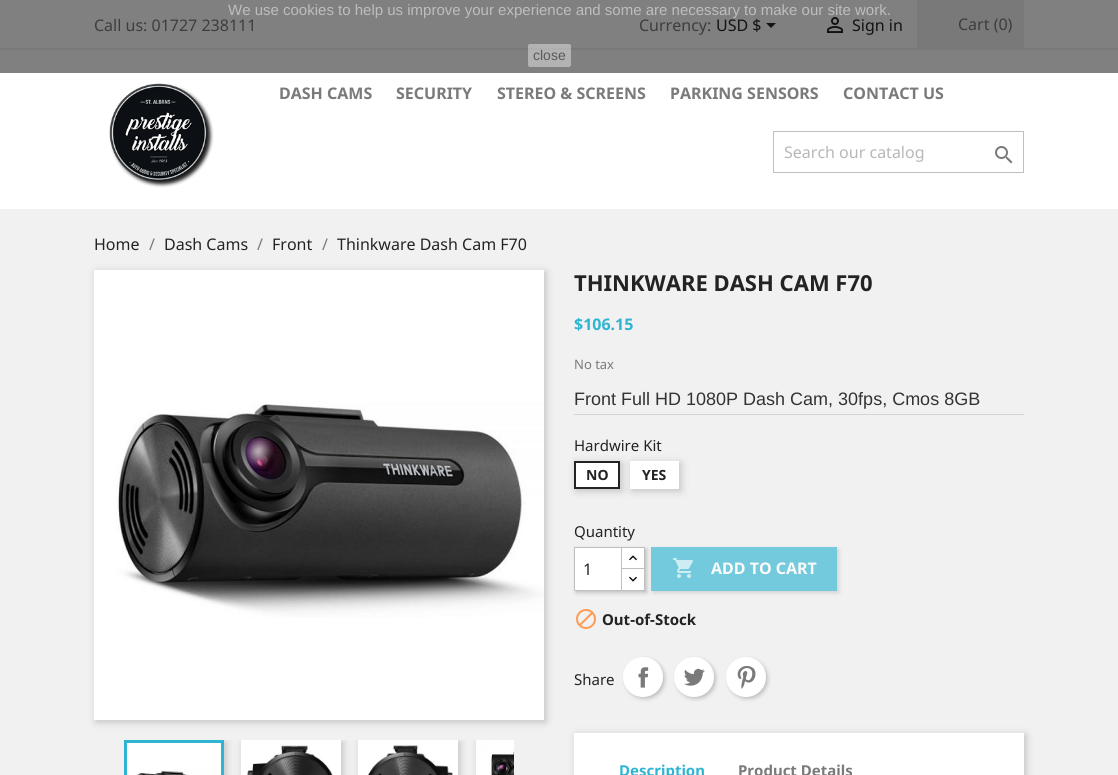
#include <cairo/cairo.h>
#include <math.h>
#include <stddef.h>

static cairo_t *cr;

static void use_color(int r, int g, int b) {
  cairo_set_source_rgb(cr, r / 255.0, g / 255.0, b / 255.0);
}

static void text(double x, double y, const char *s, const char *family, double size, int italic, int bold, int r, int g, int b) {
  cairo_select_font_face(cr, family, italic ? CAIRO_FONT_SLANT_ITALIC : CAIRO_FONT_SLANT_NORMAL,
    bold ? CAIRO_FONT_WEIGHT_BOLD : CAIRO_FONT_WEIGHT_NORMAL);
  cairo_set_font_size(cr, size);
  use_color(r, g, b);
  cairo_move_to(cr, x, y);
  cairo_show_text(cr, s);
}

static void box(double x, double y, double w, double h, int r, int g, int b) {
  use_color(r, g, b);
  cairo_rectangle(cr, x, y, w, h);
  cairo_fill(cr);
}

static void round_rect(double x, double y, double w, double h, double r) {
  cairo_new_sub_path(cr);
  cairo_arc(cr, x + w - r, y + h - r, r, 0, M_PI / 2);
  cairo_arc(cr, x + r, y + h - r, r, M_PI / 2, M_PI);
  cairo_arc(cr, x + r, y + r, r, M_PI, 1.5 * M_PI);
  cairo_arc(cr, x + w - r, y + r, r, 1.5 * M_PI, 2 * M_PI);
  cairo_close_path(cr);
}

static void shadow(double x, double y, double w, double h, double r, double blur, double alpha) {
  cairo_push_group_with_content(cr, CAIRO_CONTENT_ALPHA);
  cairo_set_operator(cr, CAIRO_OPERATOR_SOURCE);
  for (int i = 15; i >= -15 && fmin(w, h) + blur * i / 3 > 0; i -= 2) {
    double e = blur * i / 6;
    cairo_set_source_rgba(cr, 0, 0, 0, alpha * erfc((i - 1) / 8.5) / 2);
    round_rect(x - e, y - e, w + 2 * e, h + 2 * e, fmax(0, fmin(r + e + blur * .6, fmin(w, h) / 2 + e)));
    cairo_fill(cr);
  }
  cairo_pattern_t *soft = cairo_pop_group(cr);
  cairo_mask(cr, soft);
  cairo_pattern_destroy(soft);
}

static void picture(const char *path, double x, double y, double w, double h) {
  cairo_surface_t *image = cairo_image_surface_create_from_png(path);
  cairo_save(cr);
  cairo_set_source_surface(cr, image, x, y);
  cairo_rectangle(cr, x, y, w, h);
  cairo_fill(cr);
  cairo_restore(cr);
  cairo_surface_destroy(image);
}

static void draw(void) {
  use_color(255, 255, 255);
  cairo_paint(cr);
  box(0, 0, 1118, 73, 128, 128, 128);
  box(0, 48, 1118, 2, 121, 121, 121);
  cairo_set_source_rgba(cr, 0.902, 0.902, 0.902, 0.5);
  round_rect(528, 44, 43, 23, 2);
  cairo_fill(cr);
  use_color(18, 18, 18);
  cairo_new_path(cr);
  cairo_move_to(cr, 766, 23);
  cairo_line_to(cr, 776, 23);
  cairo_line_to(cr, 771, 28);
  cairo_close_path(cr);
  cairo_fill(cr);
  picture("img_01.png", 827, 17, 16, 16);
  box(917, 0, 107, 48, 121, 121, 121);
  picture("img_02.png", 109, 83, 105, 105);
  cairo_rectangle(cr, 773.5, 131.5, 250, 41);
  use_color(191, 191, 191);
  cairo_set_line_width(cr, 1);
  cairo_stroke(cr);
  picture("img_03.png", 995, 146, 18, 18);
  box(0, 209, 1118, 566, 241, 241, 241);
  use_color(0, 0, 0);
  shadow(96, 272, 450, 450, 0, 4, 0.2);
  box(94, 270, 450, 450, 255, 255, 255);
  picture("img_04.png", 116, 401, 428, 217);
  cairo_save(cr);
  cairo_rectangle(cr, 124, 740, 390, 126);
  cairo_clip(cr);
  use_color(0, 0, 0);
  shadow(126, 742, 100, 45, 0, 4, 0.2);
  shadow(243, 742, 100, 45, 0, 4, 0.2);
  shadow(360, 742, 100, 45, 0, 4, 0.2);
  shadow(478, 742, 100, 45, 0, 4, 0.2);
  cairo_restore(cr);
  cairo_rectangle(cr, 125.5, 741.5, 97, 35);
  use_color(47, 181, 210);
  cairo_set_line_width(cr, 3);
  cairo_stroke(cr);
  picture("img_05.png", 241, 740, 100, 35);
  picture("img_06.png", 358, 740, 100, 35);
  picture("img_07.png", 476, 740, 38, 35);
  picture("img_08.png", 127, 743, 94, 32);
  box(574, 414, 450, 1, 212, 212, 212);
  use_color(0, 0, 0);
  shadow(576, 463, 46, 28, 0, 4, 0.2);
  use_color(255, 255, 255);
  cairo_rectangle(cr, 575, 462, 44, 26);
  cairo_fill_preserve(cr);
  use_color(35, 35, 35);
  cairo_set_line_width(cr, 2);
  cairo_stroke(cr);
  use_color(0, 0, 0);
  shadow(632, 463, 49, 28, 0, 4, 0.2);
  box(630, 461, 49, 28, 255, 255, 255);
  use_color(0, 0, 0);
  shadow(576, 549, 71, 44, 0, 2, 0.2);
  box(622, 548, 22, 20, 255, 255, 255);
  cairo_rectangle(cr, 621.5, 547.5, 23, 22);
  use_color(191, 191, 191);
  cairo_set_line_width(cr, 1);
  cairo_stroke(cr);
  use_color(255, 255, 255);
  cairo_rectangle(cr, 621.5, 568.5, 23, 22);
  cairo_fill_preserve(cr);
  use_color(191, 191, 191);
  cairo_stroke(cr);
  use_color(255, 255, 255);
  cairo_rectangle(cr, 574.5, 547.5, 47, 43);
  cairo_fill_preserve(cr);
  use_color(191, 191, 191);
  cairo_stroke(cr);
  picture("img_09.png", 629, 555, 8, 6);
  picture("img_10.png", 629, 576, 8, 6);
  use_color(0, 0, 0);
  shadow(653, 549, 186, 44, 0, 2, 0.13);
  box(651, 547, 186, 44, 115, 202, 221);
  picture("img_11.png", 673, 558, 20, 20);
  picture("img_12.png", 576, 609, 20, 20);
  use_color(0, 0, 0);
  shadow(625, 659, 40, 40, 20, 2, 0.2);
  use_color(255, 255, 255);
  cairo_arc(cr, 643, 677, 20, 0, 2 * M_PI);
  cairo_fill(cr);
  picture("img_13.png", 638, 667, 11, 21);
  use_color(0, 0, 0);
  shadow(676, 659, 40, 40, 20, 2, 0.2);
  use_color(255, 255, 255);
  cairo_arc(cr, 694, 677, 20, 0, 2 * M_PI);
  cairo_fill(cr);
  picture("img_14.png", 684, 668, 21, 18);
  use_color(0, 0, 0);
  shadow(728, 659, 40, 40, 20, 2, 0.2);
  use_color(255, 255, 255);
  cairo_arc(cr, 746, 677, 20, 0, 2 * M_PI);
  cairo_fill(cr);
  picture("img_15.png", 737, 666, 19, 23);
  use_color(0, 0, 0);
  shadow(576, 735, 450, 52, 0, 4, 0.2);
  box(574, 733, 450, 42, 255, 255, 255);
  text(228, 15, "We use cookies to help us improve your experience and some are necessary to make our site work.", "Liberation Sans", 15, 0, 0, 189, 189, 189);
  text(533, 60, "close", "Liberation Sans", 14, 0, 0, 89, 89, 89);
  text(94, 31, "Call us: 01727 238111", "Noto Sans", 16, 0, 0, 61, 61, 61);
  text(639, 31, "Currency:", "Noto Sans", 16, 0, 0, 61, 61, 61);
  text(716, 31, "USD $", "Noto Sans", 16, 0, 0, 18, 18, 18);
  text(852, 31, "Sign in", "Noto Sans", 16, 0, 0, 18, 18, 18);
  text(958, 30, "Cart (0)", "Noto Sans", 16, 0, 0, 61, 61, 61);
  text(279, 99, "DASH CAMS", "Noto Sans", 16, 0, 1, 122, 122, 122);
  text(396, 99, "SECURITY", "Noto Sans", 16, 0, 1, 122, 122, 122);
  text(497, 99, "STEREO & SCREENS", "Noto Sans", 16, 0, 1, 122, 122, 122);
  text(670, 99, "PARKING SENSORS", "Noto Sans", 16, 0, 1, 122, 122, 122);
  text(843, 99, "CONTACT US", "Noto Sans", 16, 0, 1, 122, 122, 122);
  text(784, 158, "Search our catalog", "Noto Sans", 16, 0, 0, 183, 183, 183);
  text(94, 250, "Home", "Noto Sans", 16, 0, 0, 35, 35, 35);
  text(149, 250, "/", "Noto Sans", 16, 0, 0, 122, 122, 122);
  text(164, 250, "Dash Cams", "Noto Sans", 16, 0, 0, 35, 35, 35);
  text(257, 250, "/", "Noto Sans", 16, 0, 0, 122, 122, 122);
  text(272, 250, "Front", "Noto Sans", 16, 0, 0, 35, 35, 35);
  text(322, 250, "/", "Noto Sans", 16, 0, 0, 122, 122, 122);
  text(337, 250, "Thinkware Dash Cam F70", "Noto Sans", 16, 0, 0, 35, 35, 35);
  text(574, 291, "THINKWARE DASH CAM F70", "Noto Sans", 22, 0, 1, 35, 35, 35);
  text(574, 330, "$106.15", "Noto Sans", 16, 0, 1, 47, 181, 210);
  text(574, 369, "No tax", "Noto Sans", 13, 0, 0, 122, 122, 122);
  text(574, 405, "Front Full HD 1080P Dash Cam, 30fps, Cmos 8GB", "Liberation Sans", 18, 0, 0, 51, 51, 51);
  text(574, 451, "Hardwire Kit", "Noto Sans", 15, 0, 0, 35, 35, 35);
  text(586, 480, "NO", "Noto Sans", 14, 0, 1, 35, 35, 35);
  text(642, 480, "YES", "Noto Sans", 14, 0, 1, 35, 35, 35);
  text(574, 537, "Quantity", "Noto Sans", 15, 0, 0, 35, 35, 35);
  text(583, 575, "1", "Noto Sans", 16, 0, 0, 35, 35, 35);
  text(711, 574, "ADD TO CART", "Noto Sans", 16, 0, 1, 250, 250, 250);
  text(602, 625, "Out-of-Stock", "Noto Sans", 15, 0, 1, 35, 35, 35);
  text(574, 685, "Share", "Noto Sans", 15, 0, 0, 35, 35, 35);
  text(619, 776, "Description", "Noto Sans", 15, 0, 1, 47, 181, 210);
  text(738, 776, "Product Details", "Noto Sans", 15, 0, 1, 122, 122, 122);
}

int main(void) {
  cairo_surface_t *surface = cairo_image_surface_create(CAIRO_FORMAT_RGB24, 1118, 775);
  cr = cairo_create(surface);
  cairo_font_options_t *options = cairo_font_options_create();
  cairo_font_options_set_hint_metrics(options, CAIRO_HINT_METRICS_OFF);
  cairo_font_options_set_hint_style(options, CAIRO_HINT_STYLE_NONE);
  cairo_set_font_options(cr, options);
  cairo_set_miter_limit(cr, 4);
  draw();
  cairo_surface_write_to_png(surface, "out.png");
  cairo_font_options_destroy(options);
  cairo_destroy(cr);
  cairo_surface_destroy(surface);
  return 0;
}
